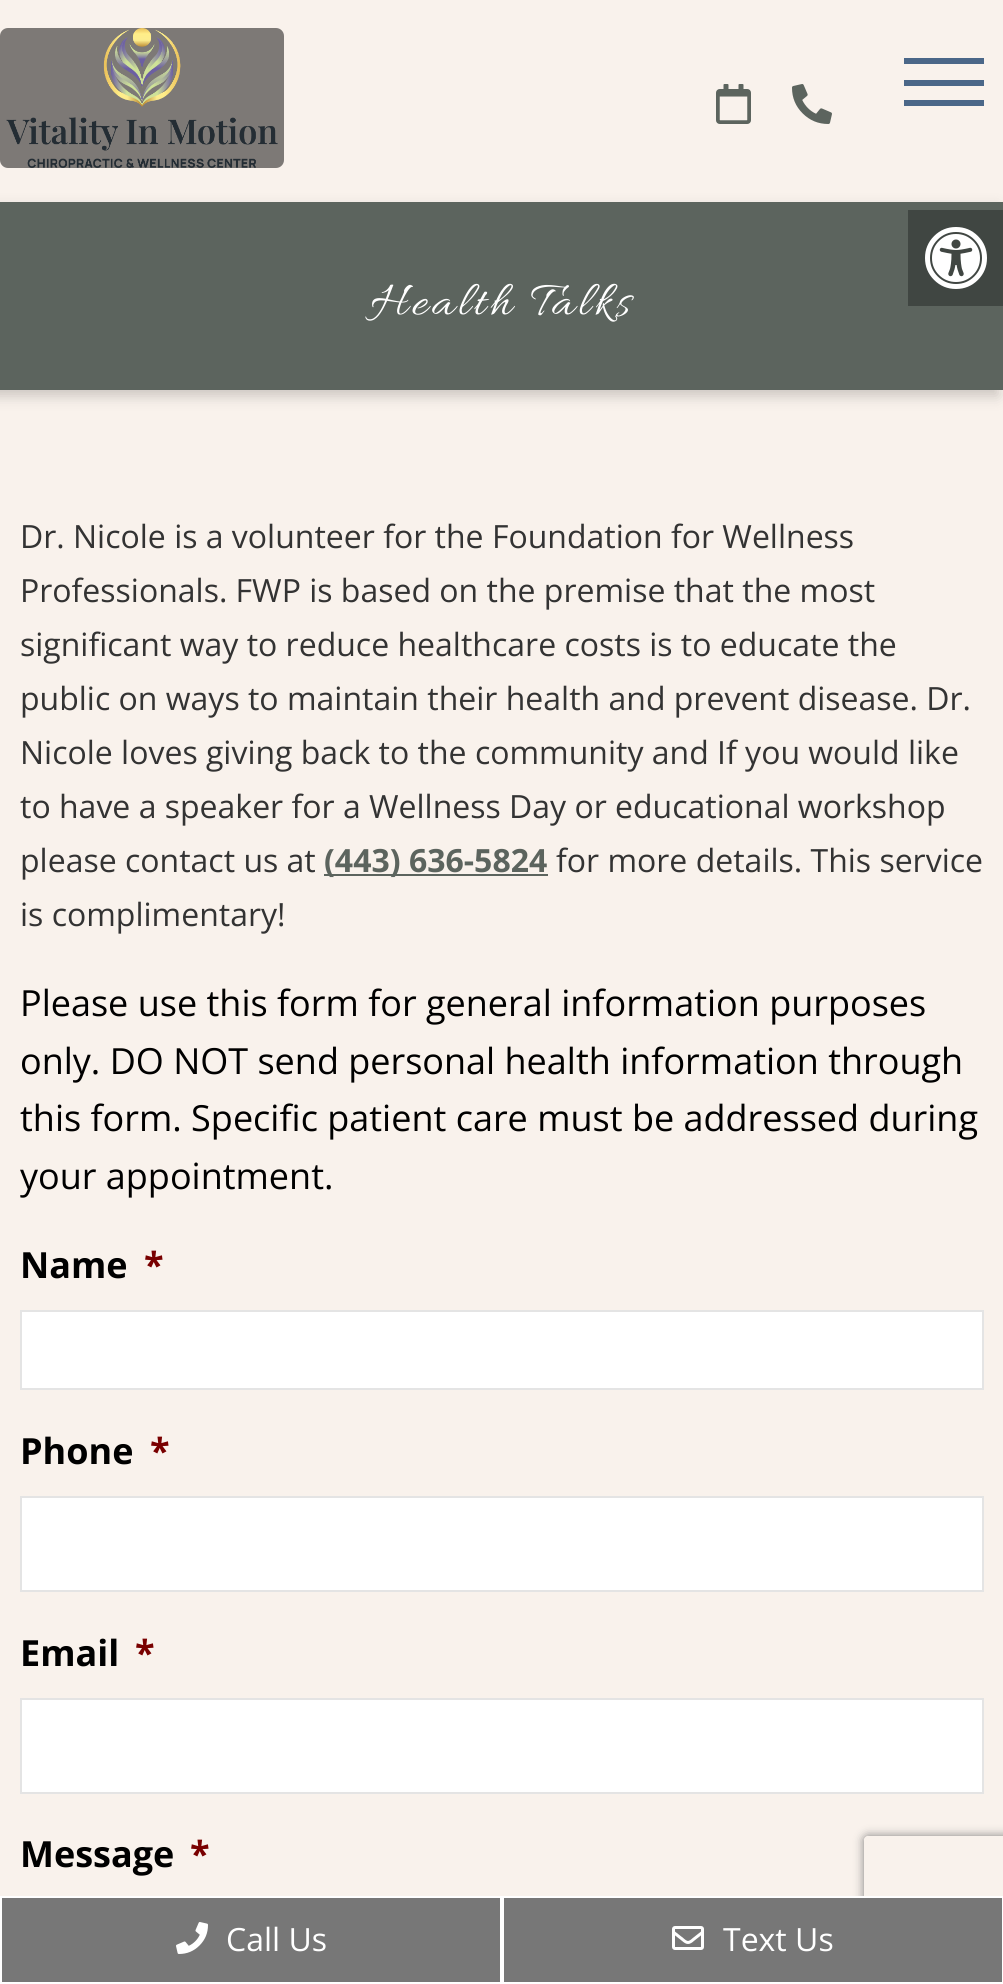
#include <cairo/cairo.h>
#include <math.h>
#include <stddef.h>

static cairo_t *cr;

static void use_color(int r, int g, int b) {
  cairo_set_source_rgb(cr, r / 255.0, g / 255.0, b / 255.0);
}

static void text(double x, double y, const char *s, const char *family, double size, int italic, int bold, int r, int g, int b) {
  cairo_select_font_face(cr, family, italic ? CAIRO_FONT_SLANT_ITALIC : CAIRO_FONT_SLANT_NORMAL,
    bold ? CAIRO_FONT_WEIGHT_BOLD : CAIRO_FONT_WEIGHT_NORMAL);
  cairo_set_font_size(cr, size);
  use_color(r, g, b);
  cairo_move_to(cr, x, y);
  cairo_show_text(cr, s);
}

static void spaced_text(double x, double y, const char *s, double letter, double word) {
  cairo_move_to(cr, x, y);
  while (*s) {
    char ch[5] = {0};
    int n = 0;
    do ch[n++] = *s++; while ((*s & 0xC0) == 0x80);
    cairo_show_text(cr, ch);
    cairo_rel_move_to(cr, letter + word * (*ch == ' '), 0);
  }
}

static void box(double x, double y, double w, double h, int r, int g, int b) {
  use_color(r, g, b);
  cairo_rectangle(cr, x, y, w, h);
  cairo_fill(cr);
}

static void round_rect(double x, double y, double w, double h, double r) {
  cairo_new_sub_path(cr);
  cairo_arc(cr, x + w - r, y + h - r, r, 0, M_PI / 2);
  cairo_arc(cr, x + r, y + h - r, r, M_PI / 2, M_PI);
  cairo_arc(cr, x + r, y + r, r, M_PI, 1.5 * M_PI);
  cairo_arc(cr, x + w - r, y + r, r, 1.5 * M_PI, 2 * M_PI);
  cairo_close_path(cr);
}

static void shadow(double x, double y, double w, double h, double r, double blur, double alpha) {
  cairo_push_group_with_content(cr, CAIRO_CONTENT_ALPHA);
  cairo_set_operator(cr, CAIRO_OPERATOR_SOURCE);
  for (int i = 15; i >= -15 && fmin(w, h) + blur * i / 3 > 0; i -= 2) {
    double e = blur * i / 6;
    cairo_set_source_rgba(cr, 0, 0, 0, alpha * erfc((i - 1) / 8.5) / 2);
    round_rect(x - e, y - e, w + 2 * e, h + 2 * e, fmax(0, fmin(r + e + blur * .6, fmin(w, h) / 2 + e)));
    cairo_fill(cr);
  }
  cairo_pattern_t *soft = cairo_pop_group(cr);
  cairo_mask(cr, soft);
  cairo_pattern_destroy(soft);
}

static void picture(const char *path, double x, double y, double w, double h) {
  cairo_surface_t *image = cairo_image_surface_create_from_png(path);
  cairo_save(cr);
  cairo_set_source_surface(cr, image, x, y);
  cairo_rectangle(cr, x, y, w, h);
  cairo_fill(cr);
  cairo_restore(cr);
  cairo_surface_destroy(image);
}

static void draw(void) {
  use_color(249, 242, 236);
  cairo_paint(cr);
  use_color(0, 0, 0);
  shadow(-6, 208, 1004, 188, 0, 7, 0.19);
  box(0, 202, 1003, 188, 92, 100, 94);
  box(908, 210, 95, 96, 64, 70, 66);
  picture("img_01.png", 925, 227, 62, 62);
  use_color(125, 121, 118);
  round_rect(0, 28, 284, 140, 8);
  cairo_fill(cr);
  picture("img_02.png", 6, 28, 272, 140);
  picture("img_03.png", 716, 84, 35, 40);
  picture("img_04.png", 792, 84, 40, 40);
  box(904, 58, 80, 6, 75, 103, 136);
  box(904, 80, 80, 6, 75, 103, 136);
  box(904, 100, 80, 6, 75, 103, 136);
  box(324, 874, 224, 2, 92, 100, 94);
  use_color(255, 255, 255);
  cairo_rectangle(cr, 21, 1311, 962, 78);
  cairo_fill_preserve(cr);
  use_color(228, 228, 228);
  cairo_stroke(cr);
  use_color(255, 255, 255);
  cairo_rectangle(cr, 21, 1497, 962, 94);
  cairo_fill_preserve(cr);
  use_color(228, 228, 228);
  cairo_stroke(cr);
  use_color(255, 255, 255);
  cairo_rectangle(cr, 21, 1699, 962, 94);
  cairo_fill_preserve(cr);
  use_color(228, 228, 228);
  cairo_stroke(cr);
  cairo_save(cr);
  cairo_set_fill_rule(cr, CAIRO_FILL_RULE_EVEN_ODD);
  cairo_new_path(cr);
  cairo_move_to(cr, 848, 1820);
  cairo_line_to(cr, 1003, 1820);
  cairo_line_to(cr, 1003, 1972);
  cairo_line_to(cr, 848, 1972);
  cairo_close_path(cr);
  cairo_move_to(cr, 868, 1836);
  cairo_line_to(cr, 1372, 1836);
  cairo_curve_to(cr, 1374, 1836, 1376, 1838, 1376, 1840);
  cairo_line_to(cr, 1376, 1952);
  cairo_curve_to(cr, 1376, 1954, 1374, 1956, 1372, 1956);
  cairo_line_to(cr, 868, 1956);
  cairo_curve_to(cr, 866, 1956, 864, 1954, 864, 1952);
  cairo_line_to(cr, 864, 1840);
  cairo_curve_to(cr, 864, 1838, 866, 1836, 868, 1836);
  cairo_close_path(cr);
  cairo_clip(cr);
  use_color(128, 128, 128);
  shadow(864, 1836, 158, 120, 4, 5, 1);
  cairo_restore(cr);
  use_color(119, 119, 119);
  cairo_rectangle(cr, 1, 1897, 500, 86);
  cairo_fill_preserve(cr);
  use_color(255, 255, 255);
  cairo_stroke(cr);
  picture("img_05.png", 176, 1922, 32, 32);
  use_color(119, 119, 119);
  cairo_rectangle(cr, 503, 1897, 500, 86);
  cairo_fill_preserve(cr);
  use_color(255, 255, 255);
  cairo_stroke(cr);
  picture("img_06.png", 672, 1926, 32, 24);
  cairo_select_font_face(cr, "Allura", CAIRO_FONT_SLANT_NORMAL, CAIRO_FONT_WEIGHT_NORMAL);
  cairo_set_font_size(cr, 50);
  spaced_text(370, 314, "Health Talks", 4, 0);
  text(20, 548, "Dr. Nicole is a volunteer for the Foundation for Wellness", "Open Sans", 32, 0, 0, 51, 51, 51);
  text(20, 602, "Professionals. FWP is based on the premise that the most", "Open Sans", 32, 0, 0, 51, 51, 51);
  text(20, 656, "significant way to reduce healthcare costs is to educate the", "Open Sans", 32, 0, 0, 51, 51, 51);
  text(20, 710, "public on ways to maintain their health and prevent disease. Dr.", "Open Sans", 32, 0, 0, 51, 51, 51);
  text(20, 764, "Nicole loves giving back to the community and If you would like", "Open Sans", 32, 0, 0, 51, 51, 51);
  text(20, 818, "to have a speaker for a Wellness Day or educational workshop", "Open Sans", 32, 0, 0, 51, 51, 51);
  text(20, 872, "please contact us at", "Open Sans", 32, 0, 0, 51, 51, 51);
  text(324, 872, "(443) 636-5824", "Open Sans", 32, 0, 1, 92, 100, 94);
  text(556, 872, "for more details. This service", "Open Sans", 32, 0, 0, 51, 51, 51);
  text(20, 926, "is complimentary!", "Open Sans", 32, 0, 0, 51, 51, 51);
  text(20, 1016, "Please use this form for general information purposes", "Open Sans", 36, 0, 0, 0, 0, 0);
  text(20, 1074, "only. DO NOT send personal health information through", "Open Sans", 36, 0, 0, 0, 0, 0);
  text(20, 1131, "this form. Specific patient care must be addressed during", "Open Sans", 36, 0, 0, 0, 0, 0);
  text(20, 1189, "your appointment.", "Open Sans", 36, 0, 0, 0, 0, 0);
  text(20, 1278, "Name", "Open Sans", 36, 0, 1, 0, 0, 0);
  text(144, 1278, "*", "Open Sans", 36, 0, 1, 121, 0, 0);
  text(20, 1464, "Phone", "Open Sans", 36, 0, 1, 0, 0, 0);
  text(150, 1464, "*", "Open Sans", 36, 0, 1, 121, 0, 0);
  text(20, 1666, "Email", "Open Sans", 36, 0, 1, 0, 0, 0);
  text(135, 1666, "*", "Open Sans", 36, 0, 1, 121, 0, 0);
  text(20, 1867, "Message", "Open Sans", 36, 0, 1, 0, 0, 0);
  text(190, 1867, "*", "Open Sans", 36, 0, 1, 121, 0, 0);
  text(226, 1951, "Call Us", "Open Sans", 32, 0, 0, 255, 255, 255);
  text(723, 1951, "Text Us", "Open Sans", 32, 0, 0, 255, 255, 255);
}

int main(void) {
  cairo_surface_t *surface = cairo_image_surface_create(CAIRO_FORMAT_RGB24, 1003, 1984);
  cr = cairo_create(surface);
  cairo_font_options_t *options = cairo_font_options_create();
  cairo_font_options_set_hint_metrics(options, CAIRO_HINT_METRICS_OFF);
  cairo_font_options_set_hint_style(options, CAIRO_HINT_STYLE_NONE);
  cairo_set_font_options(cr, options);
  cairo_set_miter_limit(cr, 4);
  draw();
  cairo_surface_write_to_png(surface, "out.png");
  cairo_font_options_destroy(options);
  cairo_destroy(cr);
  cairo_surface_destroy(surface);
  return 0;
}
